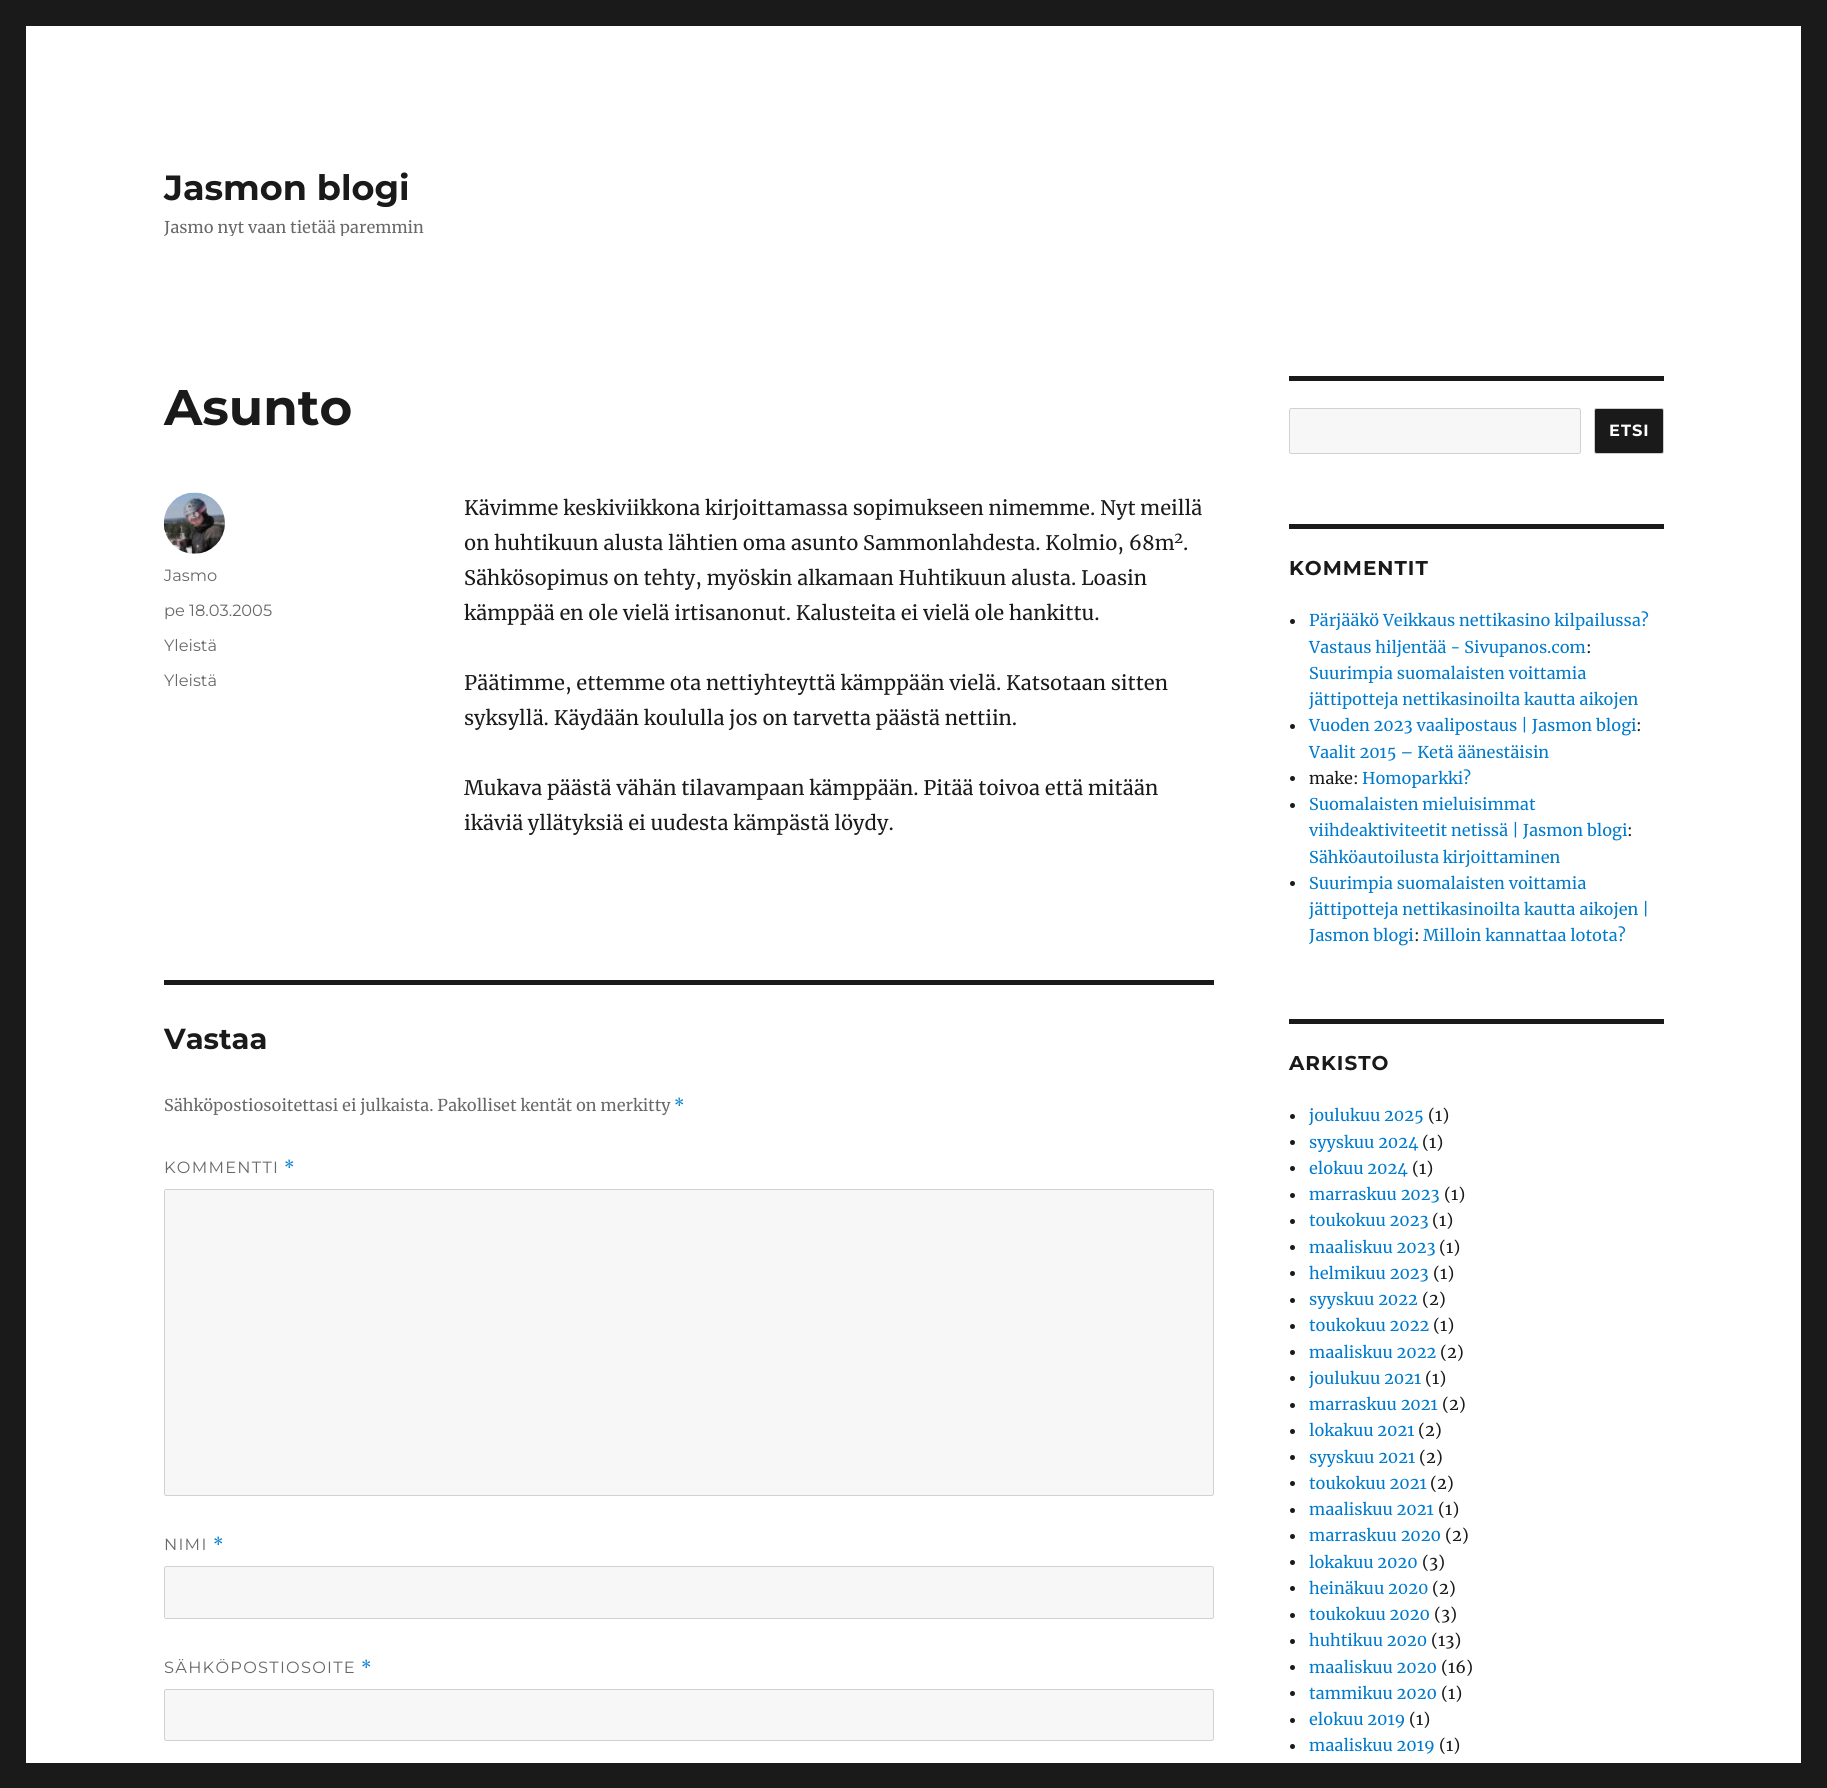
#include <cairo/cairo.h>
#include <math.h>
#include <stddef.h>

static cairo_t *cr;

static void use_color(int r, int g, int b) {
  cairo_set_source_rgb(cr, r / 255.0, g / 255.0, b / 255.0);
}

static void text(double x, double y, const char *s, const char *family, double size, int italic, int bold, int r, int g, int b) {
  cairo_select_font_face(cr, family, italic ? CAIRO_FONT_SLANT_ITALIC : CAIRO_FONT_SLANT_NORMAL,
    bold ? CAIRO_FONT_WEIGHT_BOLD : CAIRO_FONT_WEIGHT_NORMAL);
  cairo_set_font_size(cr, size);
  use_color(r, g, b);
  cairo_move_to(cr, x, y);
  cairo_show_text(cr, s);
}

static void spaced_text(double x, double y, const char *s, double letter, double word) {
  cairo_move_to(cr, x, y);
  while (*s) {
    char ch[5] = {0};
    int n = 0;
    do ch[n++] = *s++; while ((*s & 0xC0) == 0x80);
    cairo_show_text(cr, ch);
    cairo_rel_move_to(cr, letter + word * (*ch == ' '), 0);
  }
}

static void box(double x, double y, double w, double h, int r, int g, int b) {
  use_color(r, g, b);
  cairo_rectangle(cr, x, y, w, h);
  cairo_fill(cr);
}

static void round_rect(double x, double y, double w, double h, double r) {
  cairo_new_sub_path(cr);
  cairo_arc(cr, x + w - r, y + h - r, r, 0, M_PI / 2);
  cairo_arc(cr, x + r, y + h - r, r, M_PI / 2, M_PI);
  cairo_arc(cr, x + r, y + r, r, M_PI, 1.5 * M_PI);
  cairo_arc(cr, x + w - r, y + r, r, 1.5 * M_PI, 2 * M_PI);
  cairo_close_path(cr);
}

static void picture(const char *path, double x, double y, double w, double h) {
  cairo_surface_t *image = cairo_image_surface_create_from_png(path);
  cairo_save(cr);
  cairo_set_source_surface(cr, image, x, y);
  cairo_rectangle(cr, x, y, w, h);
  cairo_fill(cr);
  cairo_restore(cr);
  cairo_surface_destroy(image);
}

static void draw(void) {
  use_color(26, 26, 26);
  cairo_paint(cr);
  box(26, 26, 1775, 1737, 255, 255, 255);
  picture("img_01.png", 163, 492, 62, 62);
  box(164, 980, 1050, 5, 26, 26, 26);
  use_color(247, 247, 247);
  round_rect(164.5, 1189.5, 1049, 306, 2);
  cairo_fill_preserve(cr);
  use_color(209, 209, 209);
  cairo_set_line_width(cr, 1);
  cairo_stroke(cr);
  use_color(247, 247, 247);
  round_rect(164.5, 1566.5, 1049, 52, 2);
  cairo_fill_preserve(cr);
  use_color(209, 209, 209);
  cairo_stroke(cr);
  use_color(247, 247, 247);
  round_rect(164.5, 1689.5, 1049, 51, 2);
  cairo_fill_preserve(cr);
  use_color(209, 209, 209);
  cairo_stroke(cr);
  box(1289, 376, 375, 5, 26, 26, 26);
  use_color(247, 247, 247);
  round_rect(1289.5, 408.5, 291, 45, 2);
  cairo_fill_preserve(cr);
  use_color(209, 209, 209);
  cairo_stroke(cr);
  use_color(26, 26, 26);
  round_rect(1594.5, 408.5, 69, 45, 2);
  cairo_fill_preserve(cr);
  use_color(204, 204, 204);
  cairo_stroke(cr);
  box(1289, 524, 375, 5, 26, 26, 26);
  cairo_arc(cr, 1292.5, 621.5, 2.5, 0, 2 * M_PI);
  cairo_fill(cr);
  cairo_arc(cr, 1292.5, 726.5, 2.5, 0, 2 * M_PI);
  cairo_fill(cr);
  cairo_arc(cr, 1292.5, 778.5, 2.5, 0, 2 * M_PI);
  cairo_fill(cr);
  cairo_arc(cr, 1292.5, 805.5, 2.5, 0, 2 * M_PI);
  cairo_fill(cr);
  cairo_arc(cr, 1292.5, 883.5, 2.5, 0, 2 * M_PI);
  cairo_fill(cr);
  box(1289, 1019, 375, 5, 26, 26, 26);
  cairo_arc(cr, 1292.5, 1116.5, 2.5, 0, 2 * M_PI);
  cairo_fill(cr);
  cairo_arc(cr, 1292.5, 1142.5, 2.5, 0, 2 * M_PI);
  cairo_fill(cr);
  cairo_arc(cr, 1292.5, 1168.5, 2.5, 0, 2 * M_PI);
  cairo_fill(cr);
  cairo_arc(cr, 1292.5, 1195.5, 2.5, 0, 2 * M_PI);
  cairo_fill(cr);
  cairo_arc(cr, 1292.5, 1221.5, 2.5, 0, 2 * M_PI);
  cairo_fill(cr);
  cairo_arc(cr, 1292.5, 1247.5, 2.5, 0, 2 * M_PI);
  cairo_fill(cr);
  cairo_arc(cr, 1292.5, 1273.5, 2.5, 0, 2 * M_PI);
  cairo_fill(cr);
  cairo_arc(cr, 1292.5, 1300.5, 2.5, 0, 2 * M_PI);
  cairo_fill(cr);
  cairo_arc(cr, 1292.5, 1326.5, 2.5, 0, 2 * M_PI);
  cairo_fill(cr);
  cairo_arc(cr, 1292.5, 1352.5, 2.5, 0, 2 * M_PI);
  cairo_fill(cr);
  cairo_arc(cr, 1292.5, 1378.5, 2.5, 0, 2 * M_PI);
  cairo_fill(cr);
  cairo_arc(cr, 1292.5, 1405.5, 2.5, 0, 2 * M_PI);
  cairo_fill(cr);
  cairo_arc(cr, 1292.5, 1431.5, 2.5, 0, 2 * M_PI);
  cairo_fill(cr);
  cairo_arc(cr, 1292.5, 1457.5, 2.5, 0, 2 * M_PI);
  cairo_fill(cr);
  cairo_arc(cr, 1292.5, 1483.5, 2.5, 0, 2 * M_PI);
  cairo_fill(cr);
  cairo_arc(cr, 1292.5, 1510.5, 2.5, 0, 2 * M_PI);
  cairo_fill(cr);
  cairo_arc(cr, 1292.5, 1536.5, 2.5, 0, 2 * M_PI);
  cairo_fill(cr);
  cairo_arc(cr, 1292.5, 1562.5, 2.5, 0, 2 * M_PI);
  cairo_fill(cr);
  cairo_arc(cr, 1292.5, 1588.5, 2.5, 0, 2 * M_PI);
  cairo_fill(cr);
  cairo_arc(cr, 1292.5, 1615.5, 2.5, 0, 2 * M_PI);
  cairo_fill(cr);
  cairo_arc(cr, 1292.5, 1641.5, 2.5, 0, 2 * M_PI);
  cairo_fill(cr);
  cairo_arc(cr, 1292.5, 1667.5, 2.5, 0, 2 * M_PI);
  cairo_fill(cr);
  cairo_arc(cr, 1292.5, 1693.5, 2.5, 0, 2 * M_PI);
  cairo_fill(cr);
  cairo_arc(cr, 1292.5, 1720.5, 2.5, 0, 2 * M_PI);
  cairo_fill(cr);
  cairo_arc(cr, 1292.5, 1746.5, 2.5, 0, 2 * M_PI);
  cairo_fill(cr);
  text(164, 200, "Jasmon blogi", "Montserrat Thin", 35, 0, 0, 26, 26, 26);
  cairo_save(cr);
  cairo_rectangle(cr, 164, 166, 260, 70);
  cairo_clip(cr);
  text(164, 233, "Jasmo nyt vaan tietää paremmin", "Merriweather", 16.25, 0, 0, 104, 104, 104);
  cairo_restore(cr);
  text(164, 425, "Asunto", "Montserrat Thin", 50, 0, 0, 26, 26, 26);
  text(164, 581, "Jasmo", "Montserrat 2 Thin", 16.25, 0, 0, 104, 104, 104);
  text(164, 616, "pe 18.03.2005", "Montserrat 2 Thin", 16.25, 0, 0, 104, 104, 104);
  text(164, 651, "Yleistä", "Montserrat 2 Thin", 16.25, 0, 0, 104, 104, 104);
  text(164, 686, "Yleistä", "Montserrat 2 Thin", 16.25, 0, 0, 104, 104, 104);
  text(464, 515, "Kävimme keskiviikkona kirjoittamassa sopimukseen nimemme. Nyt meillä", "Merriweather", 20, 0, 0, 26, 26, 26);
  text(464, 550, "on huhtikuun alusta lähtien oma asunto Sammonlahdesta. Kolmio, 68m", "Merriweather", 20, 0, 0, 26, 26, 26);
  text(1174, 543, "2", "Merriweather", 15, 0, 0, 26, 26, 26);
  text(1183, 550, ".", "Merriweather", 20, 0, 0, 26, 26, 26);
  text(464, 585, "Sähkösopimus on tehty, myöskin alkamaan Huhtikuun alusta. Loasin", "Merriweather", 20, 0, 0, 26, 26, 26);
  text(464, 620, "kämppää en ole vielä irtisanonut. Kalusteita ei vielä ole hankittu.", "Merriweather", 20, 0, 0, 26, 26, 26);
  text(464, 690, "Päätimme, ettemme ota nettiyhteyttä kämppään vielä. Katsotaan sitten", "Merriweather", 20, 0, 0, 26, 26, 26);
  text(464, 725, "syksyllä. Käydään koululla jos on tarvetta päästä nettiin.", "Merriweather", 20, 0, 0, 26, 26, 26);
  text(464, 795, "Mukava päästä vähän tilavampaan kämppään. Pitää toivoa että mitään", "Merriweather", 20, 0, 0, 26, 26, 26);
  text(464, 830, "ikäviä yllätyksiä ei uudesta kämpästä löydy.", "Merriweather", 20, 0, 0, 26, 26, 26);
  text(164, 1049, "Vastaa", "Montserrat Thin", 29, 0, 0, 26, 26, 26);
  text(164, 1111, "Sähköpostiosoitettasi ei julkaista. Pakolliset kentät on merkitty", "Merriweather", 16.25, 0, 0, 104, 104, 104);
  text(674, 1111, "*", "Merriweather", 16.25, 0, 0, 0, 122, 204);
  cairo_select_font_face(cr, "Montserrat 2 Thin", CAIRO_FONT_SLANT_NORMAL, CAIRO_FONT_WEIGHT_NORMAL);
  use_color(104, 104, 104);
  spaced_text(164, 1173, "KOMMENTTI", 1.25, 0);
  cairo_select_font_face(cr, "Merriweather", CAIRO_FONT_SLANT_NORMAL, CAIRO_FONT_WEIGHT_NORMAL);
  use_color(0, 122, 204);
  spaced_text(284, 1173, "*", 1.25, 0);
  cairo_select_font_face(cr, "Montserrat 2 Thin", CAIRO_FONT_SLANT_NORMAL, CAIRO_FONT_WEIGHT_NORMAL);
  use_color(104, 104, 104);
  spaced_text(164, 1550, "NIMI", 1.25, 0);
  cairo_select_font_face(cr, "Merriweather", CAIRO_FONT_SLANT_NORMAL, CAIRO_FONT_WEIGHT_NORMAL);
  use_color(0, 122, 204);
  spaced_text(213, 1550, "*", 1.25, 0);
  cairo_select_font_face(cr, "Montserrat 2 Thin", CAIRO_FONT_SLANT_NORMAL, CAIRO_FONT_WEIGHT_NORMAL);
  use_color(104, 104, 104);
  spaced_text(164, 1673, "SÄHKÖPOSTIOSOITE", 1.25, 0);
  cairo_select_font_face(cr, "Merriweather", CAIRO_FONT_SLANT_NORMAL, CAIRO_FONT_WEIGHT_NORMAL);
  use_color(0, 122, 204);
  spaced_text(361, 1673, "*", 1.25, 0);
  cairo_select_font_face(cr, "Montserrat Thin", CAIRO_FONT_SLANT_NORMAL, CAIRO_FONT_WEIGHT_NORMAL);
  use_color(255, 255, 255);
  spaced_text(1609, 436, "ETSI", 1, 0);
  cairo_set_font_size(cr, 20);
  use_color(26, 26, 26);
  spaced_text(1289, 575, "KOMMENTIT", 1, 0);
  text(1309, 626, "Pärjääkö Veikkaus nettikasino kilpailussa?", "Merriweather", 16.25, 0, 0, 0, 122, 204);
  text(1309, 653, "Vastaus hiljentää - Sivupanos.com", "Merriweather", 16.25, 0, 0, 0, 122, 204);
  text(1586, 653, ":", "Merriweather", 16.25, 0, 0, 26, 26, 26);
  text(1309, 679, "Suurimpia suomalaisten voittamia", "Merriweather", 16.25, 0, 0, 0, 122, 204);
  text(1309, 705, "jättipotteja nettikasinoilta kautta aikojen", "Merriweather", 16.25, 0, 0, 0, 122, 204);
  text(1309, 731, "Vuoden 2023 vaalipostaus | Jasmon blogi", "Merriweather", 16.25, 0, 0, 0, 122, 204);
  text(1636, 731, ":", "Merriweather", 16.25, 0, 0, 26, 26, 26);
  text(1309, 758, "Vaalit 2015 – Ketä äänestäisin", "Merriweather", 16.25, 0, 0, 0, 122, 204);
  text(1309, 784, "make:", "Merriweather", 16.25, 0, 0, 26, 26, 26);
  text(1362, 784, "Homoparkki?", "Merriweather", 16.25, 0, 0, 0, 122, 204);
  text(1309, 810, "Suomalaisten mieluisimmat", "Merriweather", 16.25, 0, 0, 0, 122, 204);
  text(1309, 836, "viihdeaktiviteetit netissä | Jasmon blogi", "Merriweather", 16.25, 0, 0, 0, 122, 204);
  text(1627, 836, ":", "Merriweather", 16.25, 0, 0, 26, 26, 26);
  text(1309, 863, "Sähköautoilusta kirjoittaminen", "Merriweather", 16.25, 0, 0, 0, 122, 204);
  text(1309, 889, "Suurimpia suomalaisten voittamia", "Merriweather", 16.25, 0, 0, 0, 122, 204);
  text(1309, 915, "jättipotteja nettikasinoilta kautta aikojen |", "Merriweather", 16.25, 0, 0, 0, 122, 204);
  text(1309, 941, "Jasmon blogi", "Merriweather", 16.25, 0, 0, 0, 122, 204);
  text(1414, 941, ":", "Merriweather", 16.25, 0, 0, 26, 26, 26);
  text(1423, 941, "Milloin kannattaa lotota?", "Merriweather", 16.25, 0, 0, 0, 122, 204);
  cairo_select_font_face(cr, "Montserrat Thin", CAIRO_FONT_SLANT_NORMAL, CAIRO_FONT_WEIGHT_NORMAL);
  cairo_set_font_size(cr, 20);
  use_color(26, 26, 26);
  spaced_text(1289, 1070, "ARKISTO", 1, 0);
  text(1309, 1121, "joulukuu 2025", "Merriweather", 16.25, 0, 0, 0, 122, 204);
  text(1428, 1121, "(1)", "Merriweather", 16.25, 0, 0, 26, 26, 26);
  text(1309, 1148, "syyskuu 2024", "Merriweather", 16.25, 0, 0, 0, 122, 204);
  text(1422, 1148, "(1)", "Merriweather", 16.25, 0, 0, 26, 26, 26);
  text(1309, 1174, "elokuu 2024", "Merriweather", 16.25, 0, 0, 0, 122, 204);
  text(1412, 1174, "(1)", "Merriweather", 16.25, 0, 0, 26, 26, 26);
  text(1309, 1200, "marraskuu 2023", "Merriweather", 16.25, 0, 0, 0, 122, 204);
  text(1444, 1200, "(1)", "Merriweather", 16.25, 0, 0, 26, 26, 26);
  text(1309, 1226, "toukokuu 2023", "Merriweather", 16.25, 0, 0, 0, 122, 204);
  text(1432, 1226, "(1)", "Merriweather", 16.25, 0, 0, 26, 26, 26);
  text(1309, 1253, "maaliskuu 2023", "Merriweather", 16.25, 0, 0, 0, 122, 204);
  text(1439, 1253, "(1)", "Merriweather", 16.25, 0, 0, 26, 26, 26);
  text(1309, 1279, "helmikuu 2023", "Merriweather", 16.25, 0, 0, 0, 122, 204);
  text(1433, 1279, "(1)", "Merriweather", 16.25, 0, 0, 26, 26, 26);
  text(1309, 1305, "syyskuu 2022", "Merriweather", 16.25, 0, 0, 0, 122, 204);
  text(1422, 1305, "(2)", "Merriweather", 16.25, 0, 0, 26, 26, 26);
  text(1309, 1331, "toukokuu 2022", "Merriweather", 16.25, 0, 0, 0, 122, 204);
  text(1433, 1331, "(1)", "Merriweather", 16.25, 0, 0, 26, 26, 26);
  text(1309, 1358, "maaliskuu 2022", "Merriweather", 16.25, 0, 0, 0, 122, 204);
  text(1440, 1358, "(2)", "Merriweather", 16.25, 0, 0, 26, 26, 26);
  text(1309, 1384, "joulukuu 2021", "Merriweather", 16.25, 0, 0, 0, 122, 204);
  text(1425, 1384, "(1)", "Merriweather", 16.25, 0, 0, 26, 26, 26);
  text(1309, 1410, "marraskuu 2021", "Merriweather", 16.25, 0, 0, 0, 122, 204);
  text(1442, 1410, "(2)", "Merriweather", 16.25, 0, 0, 26, 26, 26);
  text(1309, 1436, "lokakuu 2021", "Merriweather", 16.25, 0, 0, 0, 122, 204);
  text(1418, 1436, "(2)", "Merriweather", 16.25, 0, 0, 26, 26, 26);
  text(1309, 1463, "syyskuu 2021", "Merriweather", 16.25, 0, 0, 0, 122, 204);
  text(1419, 1463, "(2)", "Merriweather", 16.25, 0, 0, 26, 26, 26);
  text(1309, 1489, "toukokuu 2021", "Merriweather", 16.25, 0, 0, 0, 122, 204);
  text(1430, 1489, "(2)", "Merriweather", 16.25, 0, 0, 26, 26, 26);
  text(1309, 1515, "maaliskuu 2021", "Merriweather", 16.25, 0, 0, 0, 122, 204);
  text(1438, 1515, "(1)", "Merriweather", 16.25, 0, 0, 26, 26, 26);
  text(1309, 1541, "marraskuu 2020", "Merriweather", 16.25, 0, 0, 0, 122, 204);
  text(1445, 1541, "(2)", "Merriweather", 16.25, 0, 0, 26, 26, 26);
  text(1309, 1568, "lokakuu 2020", "Merriweather", 16.25, 0, 0, 0, 122, 204);
  text(1422, 1568, "(3)", "Merriweather", 16.25, 0, 0, 26, 26, 26);
  text(1309, 1594, "heinäkuu 2020", "Merriweather", 16.25, 0, 0, 0, 122, 204);
  text(1432, 1594, "(2)", "Merriweather", 16.25, 0, 0, 26, 26, 26);
  text(1309, 1620, "toukokuu 2020", "Merriweather", 16.25, 0, 0, 0, 122, 204);
  text(1434, 1620, "(3)", "Merriweather", 16.25, 0, 0, 26, 26, 26);
  text(1309, 1646, "huhtikuu 2020", "Merriweather", 16.25, 0, 0, 0, 122, 204);
  text(1431, 1646, "(13)", "Merriweather", 16.25, 0, 0, 26, 26, 26);
  text(1309, 1673, "maaliskuu 2020", "Merriweather", 16.25, 0, 0, 0, 122, 204);
  text(1441, 1673, "(16)", "Merriweather", 16.25, 0, 0, 26, 26, 26);
  text(1309, 1699, "tammikuu 2020", "Merriweather", 16.25, 0, 0, 0, 122, 204);
  text(1441, 1699, "(1)", "Merriweather", 16.25, 0, 0, 26, 26, 26);
  text(1309, 1725, "elokuu 2019", "Merriweather", 16.25, 0, 0, 0, 122, 204);
  text(1409, 1725, "(1)", "Merriweather", 16.25, 0, 0, 26, 26, 26);
  text(1309, 1751, "maaliskuu 2019", "Merriweather", 16.25, 0, 0, 0, 122, 204);
  text(1439, 1751, "(1)", "Merriweather", 16.25, 0, 0, 26, 26, 26);
}

int main(void) {
  cairo_surface_t *surface = cairo_image_surface_create(CAIRO_FORMAT_RGB24, 1827, 1788);
  cr = cairo_create(surface);
  cairo_font_options_t *options = cairo_font_options_create();
  cairo_font_options_set_hint_metrics(options, CAIRO_HINT_METRICS_OFF);
  cairo_font_options_set_hint_style(options, CAIRO_HINT_STYLE_NONE);
  cairo_set_font_options(cr, options);
  cairo_set_miter_limit(cr, 4);
  draw();
  cairo_surface_write_to_png(surface, "out.png");
  cairo_font_options_destroy(options);
  cairo_destroy(cr);
  cairo_surface_destroy(surface);
  return 0;
}
